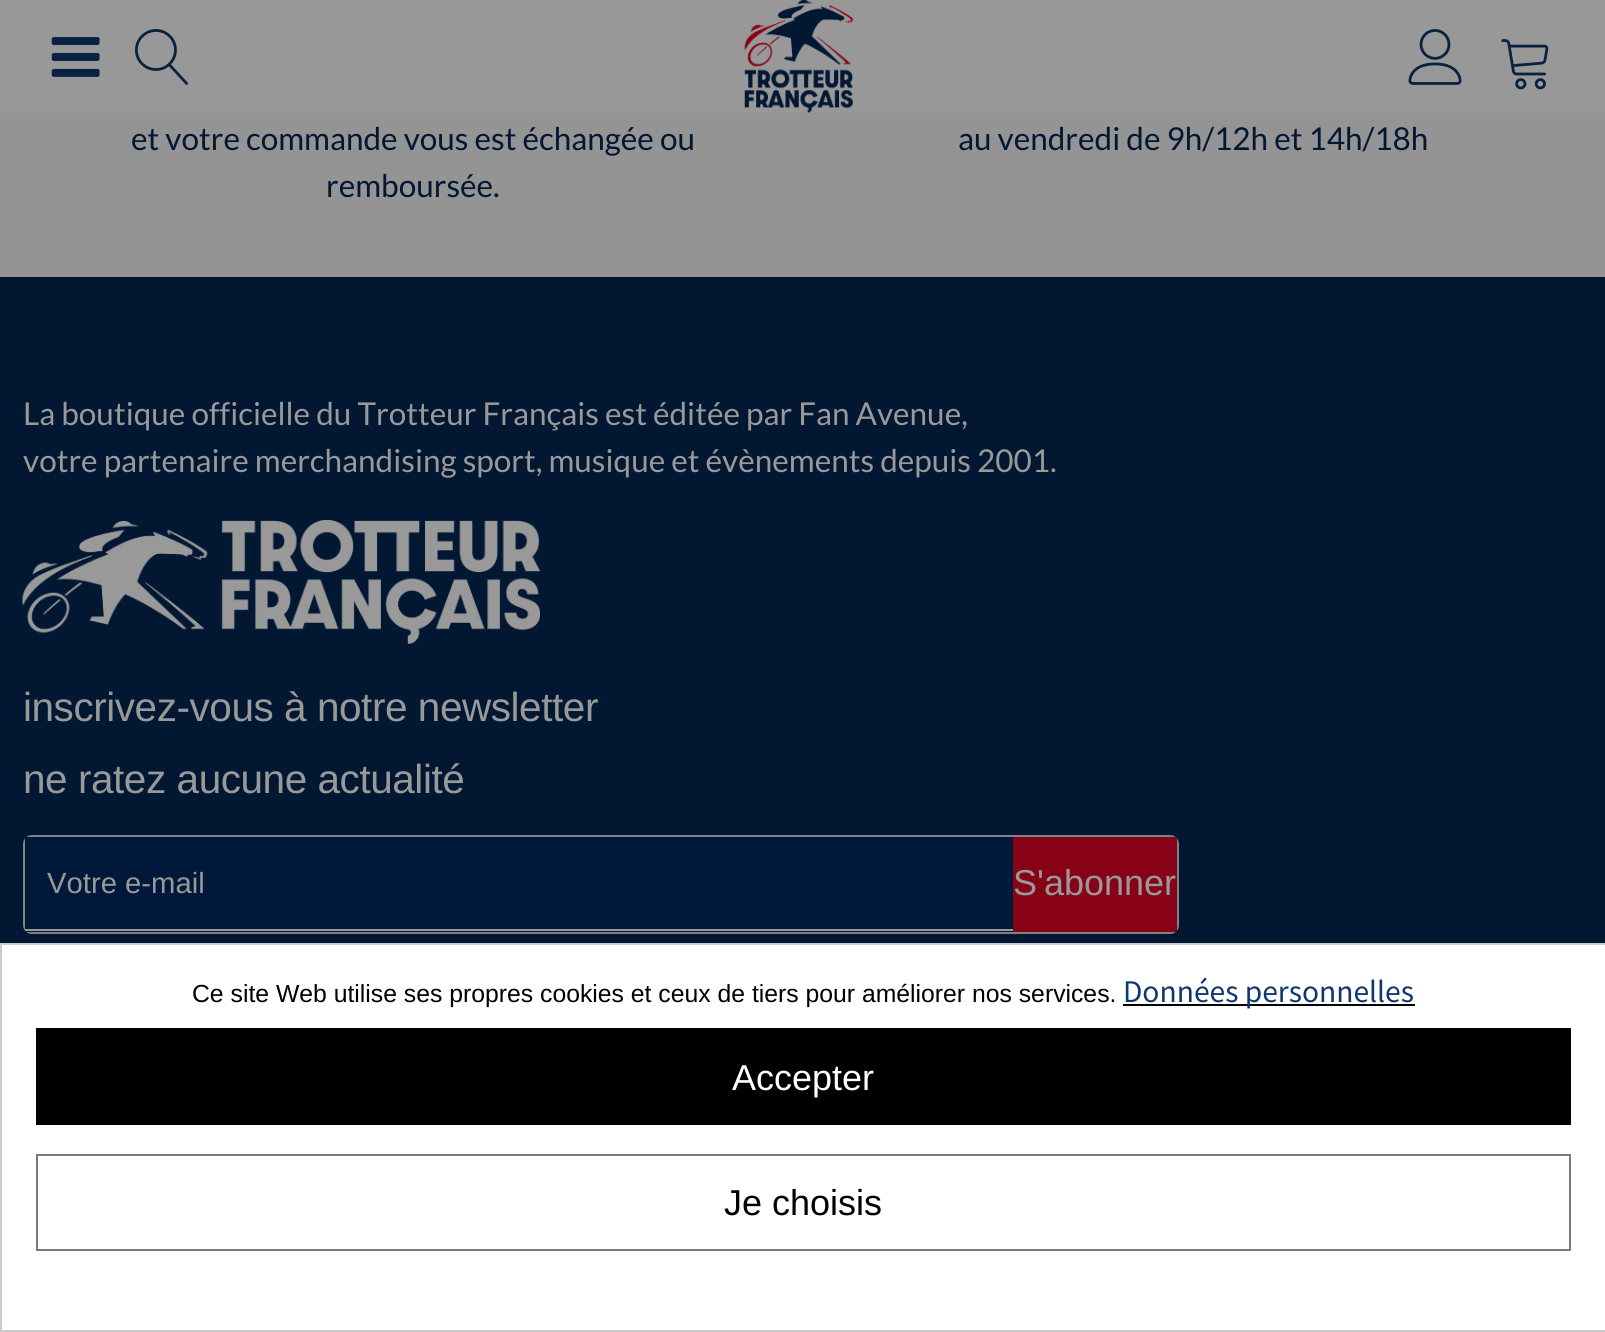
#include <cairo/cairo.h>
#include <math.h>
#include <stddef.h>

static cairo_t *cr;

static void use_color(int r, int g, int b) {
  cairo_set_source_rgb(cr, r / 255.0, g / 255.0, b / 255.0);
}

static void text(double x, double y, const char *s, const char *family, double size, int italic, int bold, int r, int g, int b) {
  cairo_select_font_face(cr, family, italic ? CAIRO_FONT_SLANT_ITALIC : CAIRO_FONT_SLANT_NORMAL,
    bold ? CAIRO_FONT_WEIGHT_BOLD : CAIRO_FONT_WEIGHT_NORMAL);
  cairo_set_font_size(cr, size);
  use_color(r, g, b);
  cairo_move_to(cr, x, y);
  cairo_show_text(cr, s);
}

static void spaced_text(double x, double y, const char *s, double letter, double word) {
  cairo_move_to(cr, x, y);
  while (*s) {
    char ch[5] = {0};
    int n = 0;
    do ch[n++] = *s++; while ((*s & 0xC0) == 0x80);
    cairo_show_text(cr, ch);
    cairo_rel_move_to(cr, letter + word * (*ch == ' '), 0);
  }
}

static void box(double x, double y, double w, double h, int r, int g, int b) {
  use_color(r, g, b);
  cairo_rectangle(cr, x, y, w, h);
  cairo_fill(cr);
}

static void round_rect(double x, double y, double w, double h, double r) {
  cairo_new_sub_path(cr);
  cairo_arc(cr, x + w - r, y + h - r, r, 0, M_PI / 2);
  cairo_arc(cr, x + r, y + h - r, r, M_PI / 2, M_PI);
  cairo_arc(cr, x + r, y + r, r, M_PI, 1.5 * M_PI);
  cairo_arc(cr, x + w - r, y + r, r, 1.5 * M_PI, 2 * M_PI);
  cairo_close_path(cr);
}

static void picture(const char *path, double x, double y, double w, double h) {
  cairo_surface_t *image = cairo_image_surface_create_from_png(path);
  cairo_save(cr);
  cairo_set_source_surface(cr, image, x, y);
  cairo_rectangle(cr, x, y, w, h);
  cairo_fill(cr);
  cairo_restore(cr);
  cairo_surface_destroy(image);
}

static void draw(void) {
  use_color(148, 148, 148);
  cairo_paint(cr);
  cairo_set_source_rgba(cr, 0.6, 0.6, 0.6, 0.95);
  cairo_rectangle(cr, 0, 0, 1605, 113);
  cairo_fill(cr);
  picture("img_01.png", 51, 37, 49, 40);
  picture("img_02.png", 135, 29, 53, 56);
  picture("img_03.png", 744, 0, 109, 113);
  picture("img_04.png", 1408, 29, 54, 56);
  picture("img_05.png", 1501, 39, 48, 51);
  box(0, 277, 1605, 666, 1, 23, 50);
  picture("img_06.png", 22, 520, 518, 124);
  round_rect(24, 836, 1154, 97, 8);
  use_color(130, 130, 130);
  cairo_stroke(cr);
  box(25, 837, 988, 95, 0, 25, 58);
  box(25, 929, 990, 2, 153, 153, 153);
  box(1013, 837, 164, 95, 136, 2, 23);
  use_color(255, 255, 255);
  cairo_rectangle(cr, 1, 944, 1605, 387);
  cairo_fill_preserve(cr);
  use_color(204, 204, 204);
  cairo_stroke(cr);
  box(1123, 1004, 292, 2, 0, 0, 0);
  box(36, 1028, 1535, 97, 0, 0, 0);
  cairo_rectangle(cr, 37, 1155, 1533, 95);
  use_color(122, 122, 122);
  cairo_stroke(cr);
  text(131, 150, "et votre commande vous est échangée ou", "Lato", 31.5, 0, 0, 1, 23, 50);
  text(326, 197, "remboursée.", "Lato", 31.5, 0, 0, 1, 23, 50);
  text(958, 150, "au vendredi de 9h/12h et 14h/18h", "Lato", 31.5, 0, 0, 1, 23, 50);
  text(23, 425, "La boutique officielle du Trotteur Français est éditée par Fan Avenue,", "Lato", 31.5, 0, 0, 153, 153, 153);
  text(23, 472, "votre partenaire merchandising sport, musique et évènements depuis 2001.", "Lato", 31.5, 0, 0, 153, 153, 153);
  cairo_select_font_face(cr, "Liberation Sans", CAIRO_FONT_SLANT_NORMAL, CAIRO_FONT_WEIGHT_NORMAL);
  cairo_set_font_size(cr, 40.5);
  spaced_text(23, 721, "inscrivez-vous à notre newsletter", -0.45, 0);
  spaced_text(23, 793, "ne ratez aucune actualité", -0.45, 0);
  text(47, 893, "Votre e-mail", "Liberation Sans", 29.25, 0, 0, 153, 153, 153);
  text(1013, 895, "S'abonner", "Liberation Sans", 36, 0, 0, 153, 153, 153);
  text(192, 1002, "Ce site Web utilise ses propres cookies et ceux de tiers pour améliorer nos services.", "Liberation Sans", 24.75, 0, 0, 0, 0, 0);
  text(1123, 1002, "Données personnelles", "Source Sans Pro", 31.5, 0, 0, 14, 56, 107);
  text(732, 1090, "Accepter", "Liberation Sans", 36, 0, 0, 255, 255, 255);
  text(724, 1215, "Je choisis", "Liberation Sans", 36, 0, 0, 0, 0, 0);
}

int main(void) {
  cairo_surface_t *surface = cairo_image_surface_create(CAIRO_FORMAT_RGB24, 1605, 1332);
  cr = cairo_create(surface);
  cairo_font_options_t *options = cairo_font_options_create();
  cairo_font_options_set_hint_metrics(options, CAIRO_HINT_METRICS_OFF);
  cairo_font_options_set_hint_style(options, CAIRO_HINT_STYLE_NONE);
  cairo_set_font_options(cr, options);
  cairo_set_miter_limit(cr, 4);
  draw();
  cairo_surface_write_to_png(surface, "out.png");
  cairo_font_options_destroy(options);
  cairo_destroy(cr);
  cairo_surface_destroy(surface);
  return 0;
}
